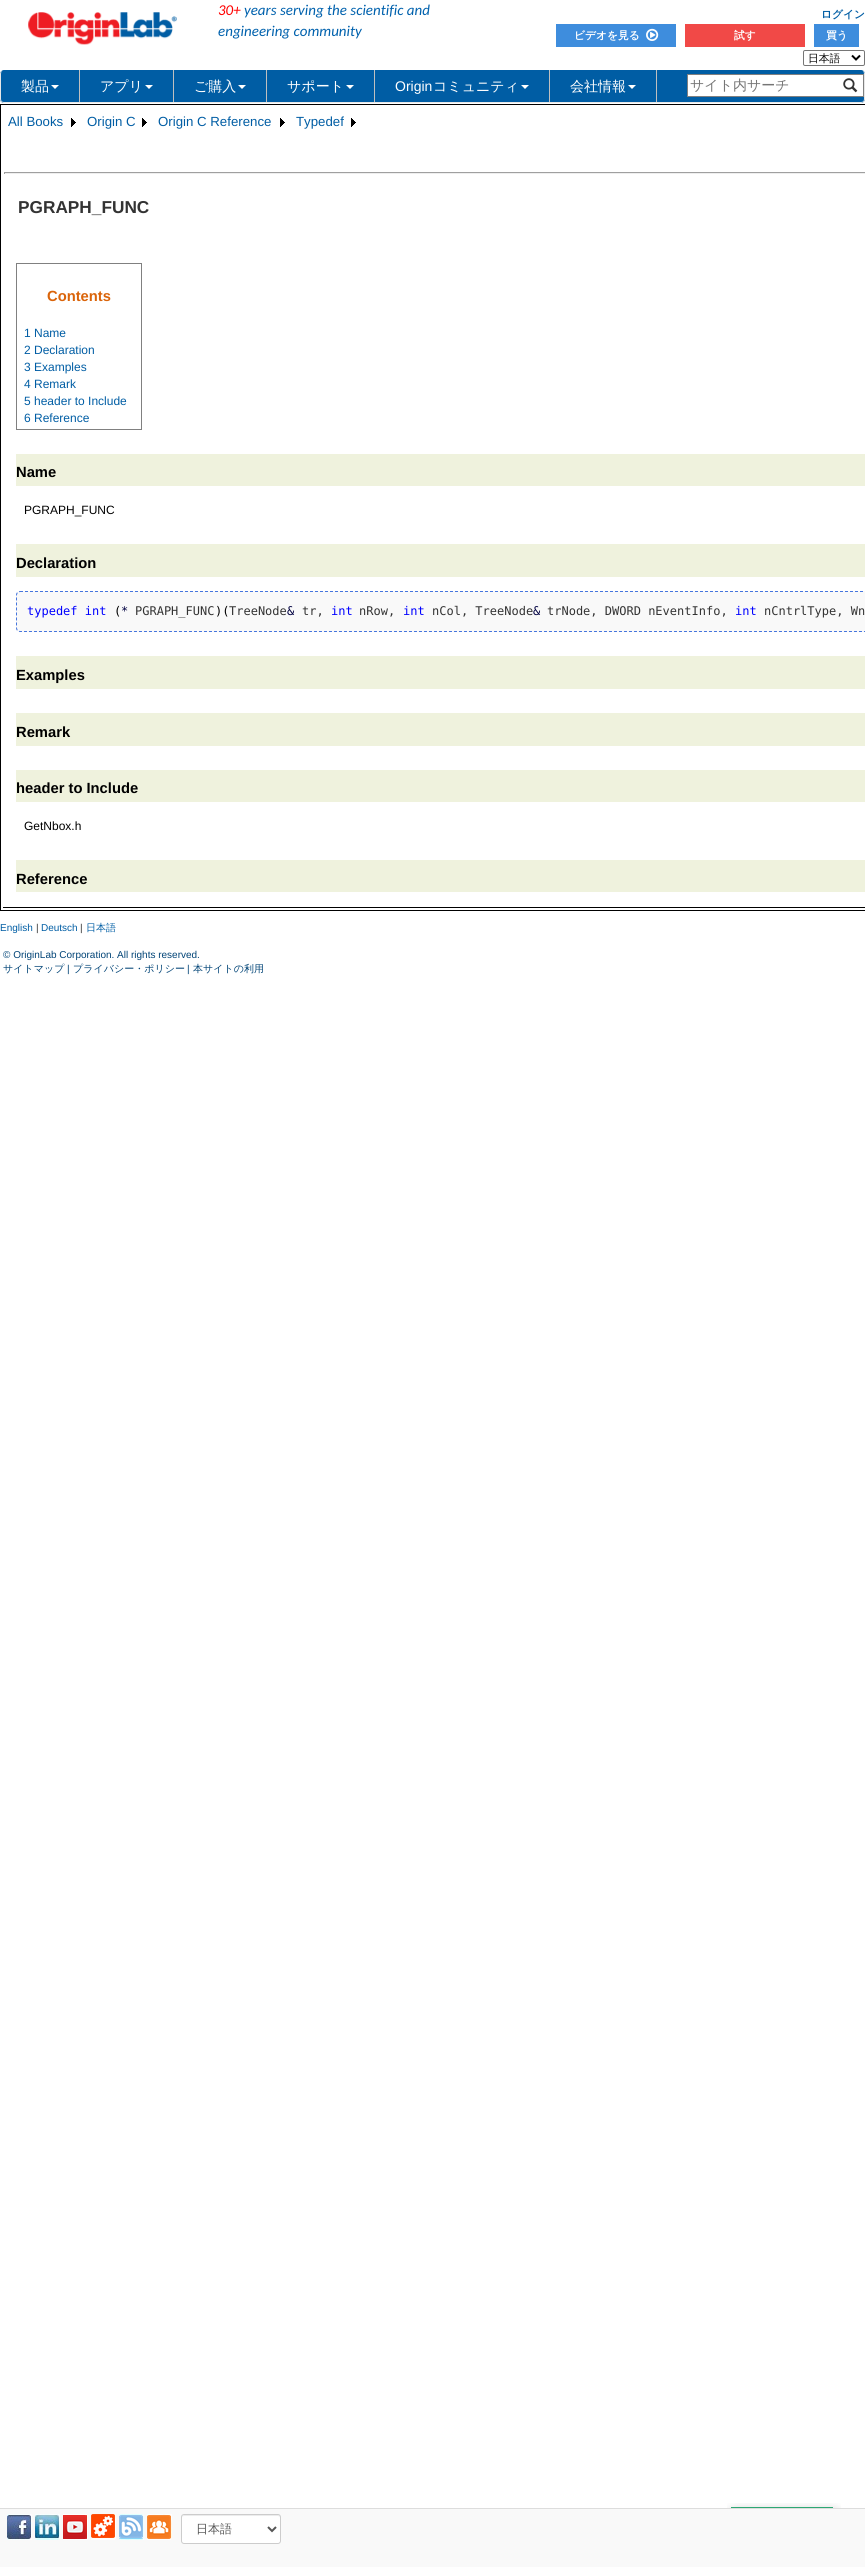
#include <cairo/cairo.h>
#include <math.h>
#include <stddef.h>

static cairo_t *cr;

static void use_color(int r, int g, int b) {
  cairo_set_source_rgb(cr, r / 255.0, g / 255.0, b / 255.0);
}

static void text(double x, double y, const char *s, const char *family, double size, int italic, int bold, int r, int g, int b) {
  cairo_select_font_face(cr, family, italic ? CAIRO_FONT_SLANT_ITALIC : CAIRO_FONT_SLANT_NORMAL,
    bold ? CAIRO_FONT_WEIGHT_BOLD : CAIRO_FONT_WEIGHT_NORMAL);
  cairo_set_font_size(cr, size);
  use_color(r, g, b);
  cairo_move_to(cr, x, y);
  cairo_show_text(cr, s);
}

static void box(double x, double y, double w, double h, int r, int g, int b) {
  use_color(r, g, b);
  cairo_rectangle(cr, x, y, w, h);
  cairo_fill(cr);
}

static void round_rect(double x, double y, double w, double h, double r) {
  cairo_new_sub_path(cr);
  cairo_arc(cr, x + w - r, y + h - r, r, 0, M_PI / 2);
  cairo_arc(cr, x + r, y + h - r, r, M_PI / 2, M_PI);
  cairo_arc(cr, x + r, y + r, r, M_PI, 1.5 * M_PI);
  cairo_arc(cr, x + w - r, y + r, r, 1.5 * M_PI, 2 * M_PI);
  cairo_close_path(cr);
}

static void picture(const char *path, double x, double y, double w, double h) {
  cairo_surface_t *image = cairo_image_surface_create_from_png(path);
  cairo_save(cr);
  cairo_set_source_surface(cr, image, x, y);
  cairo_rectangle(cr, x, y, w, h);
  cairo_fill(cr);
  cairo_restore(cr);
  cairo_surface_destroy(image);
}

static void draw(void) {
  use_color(255, 255, 255);
  cairo_paint(cr);
  picture("img_01.png", 28, 12, 149, 33);
  box(556, 24, 120, 23, 62, 141, 221);
  picture("img_02.png", 646, 28, 13, 13);
  box(685, 24, 120, 23, 241, 73, 71);
  box(814, 24, 45, 23, 62, 141, 221);
  round_rect(803.5, 50.5, 61, 15, 1.5);
  use_color(118, 118, 118);
  cairo_set_line_width(cr, 1);
  cairo_stroke(cr);
  cairo_new_path(cr);
  cairo_move_to(cr, 852, 55.5);
  cairo_line_to(cr, 856, 59.5);
  cairo_line_to(cr, 860, 55.5);
  use_color(0, 0, 0);
  cairo_set_line_width(cr, 2);
  cairo_stroke(cr);
  use_color(0, 93, 164);
  round_rect(0, 70, 865, 33, 4);
  cairo_fill(cr);
  use_color(231, 231, 231);
  cairo_set_fill_rule(cr, CAIRO_FILL_RULE_EVEN_ODD);
  cairo_new_path(cr);
  cairo_move_to(cr, 4, 70);
  cairo_line_to(cr, 861, 70);
  cairo_curve_to(cr, 863, 70, 865, 72, 865, 74);
  cairo_line_to(cr, 865, 99);
  cairo_curve_to(cr, 865, 101, 863, 103, 861, 103);
  cairo_line_to(cr, 4, 103);
  cairo_curve_to(cr, 2, 103, 0, 101, 0, 99);
  cairo_line_to(cr, 0, 74);
  cairo_curve_to(cr, 0, 72, 2, 70, 4, 70);
  cairo_close_path(cr);
  cairo_move_to(cr, 4, 70);
  cairo_line_to(cr, 861, 70);
  cairo_curve_to(cr, 863, 70, 864, 72, 864, 74);
  cairo_line_to(cr, 864, 99);
  cairo_curve_to(cr, 864, 101, 863, 102, 861, 102);
  cairo_line_to(cr, 4, 102);
  cairo_curve_to(cr, 2, 102, 1, 101, 1, 99);
  cairo_line_to(cr, 1, 74);
  cairo_curve_to(cr, 1, 72, 2, 70, 4, 70);
  cairo_close_path(cr);
  cairo_fill(cr);
  box(79, 70, 1, 32, 191, 191, 191);
  use_color(255, 255, 255);
  cairo_set_fill_rule(cr, CAIRO_FILL_RULE_WINDING);
  cairo_new_path(cr);
  cairo_move_to(cr, 51, 85);
  cairo_line_to(cr, 59, 85);
  cairo_line_to(cr, 55, 89);
  cairo_close_path(cr);
  cairo_fill(cr);
  box(173, 70, 1, 32, 191, 191, 191);
  use_color(255, 255, 255);
  cairo_new_path(cr);
  cairo_move_to(cr, 145, 85);
  cairo_line_to(cr, 153, 85);
  cairo_line_to(cr, 149, 89);
  cairo_close_path(cr);
  cairo_fill(cr);
  box(266, 70, 1, 32, 191, 191, 191);
  use_color(255, 255, 255);
  cairo_new_path(cr);
  cairo_move_to(cr, 238, 85);
  cairo_line_to(cr, 246, 85);
  cairo_line_to(cr, 242, 89);
  cairo_close_path(cr);
  cairo_fill(cr);
  box(374, 70, 1, 32, 191, 191, 191);
  use_color(255, 255, 255);
  cairo_new_path(cr);
  cairo_move_to(cr, 346, 85);
  cairo_line_to(cr, 354, 85);
  cairo_line_to(cr, 350, 89);
  cairo_close_path(cr);
  cairo_fill(cr);
  box(549, 70, 1, 32, 191, 191, 191);
  use_color(255, 255, 255);
  cairo_new_path(cr);
  cairo_move_to(cr, 521, 85);
  cairo_line_to(cr, 529, 85);
  cairo_line_to(cr, 525, 89);
  cairo_close_path(cr);
  cairo_fill(cr);
  box(656, 70, 1, 32, 191, 191, 191);
  use_color(255, 255, 255);
  cairo_new_path(cr);
  cairo_move_to(cr, 628, 85);
  cairo_line_to(cr, 636, 85);
  cairo_line_to(cr, 632, 89);
  cairo_close_path(cr);
  cairo_fill(cr);
  box(688, 75, 175, 21, 255, 255, 255);
  box(687, 74, 177, 1, 128, 128, 128);
  box(687, 96, 150, 1, 128, 128, 128);
  box(687, 74, 1, 23, 128, 128, 128);
  box(863, 74, 1, 23, 128, 128, 128);
  box(837, 96, 27, 1, 128, 128, 128);
  picture("img_03.png", 843, 78, 15, 15);
  cairo_rectangle(cr, 0.5, 104.5, 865, 806);
  use_color(0, 0, 0);
  cairo_set_line_width(cr, 1);
  cairo_stroke(cr);
  picture("img_04.png", 71, 118, 5, 9);
  picture("img_04.png", 142, 118, 5, 9);
  picture("img_04.png", 280, 118, 5, 9);
  picture("img_04.png", 351, 118, 5, 9);
  box(4, 172, 861, 1, 159, 159, 159);
  box(4, 173, 861, 1, 238, 238, 238);
  box(4, 172, 1, 2, 159, 159, 159);
  box(3, 907, 862, 1, 0, 0, 0);
  cairo_rectangle(cr, 16.5, 263.5, 125, 166);
  use_color(128, 128, 128);
  cairo_stroke(cr);
  box(16, 454, 849, 32, 239, 242, 221);
  box(16, 544, 849, 33, 239, 242, 221);
  use_color(249, 249, 249);
  round_rect(16, 591, 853, 41, 4);
  cairo_fill(cr);
  cairo_new_path(cr);
  cairo_move_to(cr, 20, 591.5);
  cairo_line_to(cr, 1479, 591.5);
  cairo_curve_to(cr, 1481, 591.5, 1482.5, 593, 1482.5, 595);
  cairo_line_to(cr, 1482.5, 628);
  cairo_curve_to(cr, 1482.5, 630, 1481, 631.5, 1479, 631.5);
  cairo_line_to(cr, 20, 631.5);
  cairo_curve_to(cr, 18, 631.5, 16.5, 630, 16.5, 628);
  cairo_line_to(cr, 16.5, 595);
  cairo_curve_to(cr, 16.5, 593, 18, 591.5, 20, 591.5);
  cairo_close_path(cr);
  use_color(69, 117, 221);
  cairo_set_dash(cr, (double[]){3, 2}, 2, 0);
  cairo_stroke(cr);
  box(16, 656, 849, 33, 239, 242, 221);
  box(16, 713, 849, 33, 239, 242, 221);
  box(16, 770, 849, 32, 239, 242, 221);
  box(16, 860, 849, 32, 239, 242, 221);
  picture("img_05.png", 727, 2503, 114, 5);
  box(0, 2509, 865, 58, 249, 249, 249);
  box(0, 2508, 865, 1, 221, 221, 221);
  picture("img_06.png", 7, 2514, 25, 26);
  picture("img_07.png", 35, 2514, 25, 26);
  picture("img_08.png", 63, 2514, 25, 26);
  picture("img_09.png", 91, 2514, 25, 26);
  picture("img_10.png", 119, 2514, 25, 26);
  picture("img_11.png", 147, 2514, 25, 26);
  use_color(255, 255, 255);
  round_rect(181, 2514, 100, 30, 3);
  cairo_fill(cr);
  use_color(236, 236, 236);
  cairo_new_path(cr);
  cairo_move_to(cr, 184, 2516);
  cairo_line_to(cr, 278, 2516);
  cairo_curve_to(cr, 279, 2516, 280, 2517, 280, 2518);
  cairo_curve_to(cr, 280, 2517, 280, 2515, 278, 2515);
  cairo_line_to(cr, 200, 2515);
  cairo_curve_to(cr, 198, 2515, 182, 2511, 182, 2518);
  cairo_curve_to(cr, 182, 2517, 183, 2516, 184, 2516);
  cairo_close_path(cr);
  cairo_fill(cr);
  round_rect(181.5, 2514.5, 99, 29, 2.5);
  use_color(204, 204, 204);
  cairo_set_dash(cr, NULL, 0, 0);
  cairo_stroke(cr);
  cairo_new_path(cr);
  cairo_move_to(cr, 268, 2527);
  cairo_line_to(cr, 272, 2531);
  cairo_line_to(cr, 276, 2527);
  use_color(85, 85, 85);
  cairo_set_line_width(cr, 2);
  cairo_stroke(cr);
  text(218, 15, "30+", "Carlito", 15, 1, 0, 255, 0, 0);
  text(244, 15, "years serving the scientific and", "Carlito", 15, 1, 0, 0, 97, 173);
  text(218, 36, "engineering community", "Carlito", 15, 1, 0, 0, 97, 173);
  text(821, 18, "ログイン", "WenQuanYi Zen Hei", 10.75, 0, 1, 0, 93, 164);
  text(574, 39, "ビデオを見る", "WenQuanYi Zen Hei", 10.75, 0, 1, 255, 255, 255);
  text(734, 39, "試す", "WenQuanYi Zen Hei", 10.75, 0, 1, 255, 255, 255);
  text(826, 39, "買う", "WenQuanYi Zen Hei", 10.75, 0, 1, 255, 255, 255);
  text(808, 62, "日本語", "WenQuanYi Zen Hei Medium", 10.75, 0, 0, 0, 0, 0);
  text(21, 91, "製品", "WenQuanYi Zen Hei Medium", 14, 0, 0, 255, 255, 255);
  text(100, 91, "アプリ", "WenQuanYi Zen Hei Medium", 14, 0, 0, 255, 255, 255);
  text(194, 91, "ご購入", "WenQuanYi Zen Hei Medium", 14, 0, 0, 255, 255, 255);
  text(287, 91, "サポート", "WenQuanYi Zen Hei Medium", 14, 0, 0, 255, 255, 255);
  text(395, 91, "Origin", "Liberation Sans", 14, 0, 0, 255, 255, 255);
  text(433, 91, "コミュニティ", "WenQuanYi Zen Hei Medium", 14, 0, 0, 255, 255, 255);
  text(570, 91, "会社情報", "WenQuanYi Zen Hei Medium", 14, 0, 0, 255, 255, 255);
  text(690, 90, "サイト内サーチ", "WenQuanYi Zen Hei Medium", 14, 0, 0, 117, 117, 117);
  text(8, 126, "All Books", "Liberation Sans", 13.25, 0, 0, 0, 93, 164);
  text(87, 126, "Origin C", "Liberation Sans", 13.25, 0, 0, 0, 93, 164);
  text(158, 126, "Origin C Reference", "Liberation Sans", 13.25, 0, 0, 0, 93, 164);
  text(296, 126, "Typedef", "Liberation Sans", 13.25, 0, 0, 0, 93, 164);
  text(18, 213, "PGRAPH_FUNC", "Liberation Sans", 17.25, 0, 1, 51, 51, 51);
  text(47, 301, "Contents", "Liberation Sans", 14.75, 0, 1, 218, 100, 10);
  text(24, 337, "1 Name", "Liberation Sans", 12, 0, 0, 0, 93, 164);
  text(24, 354, "2 Declaration", "Liberation Sans", 12, 0, 0, 0, 93, 164);
  text(24, 371, "3 Examples", "Liberation Sans", 12, 0, 0, 0, 93, 164);
  text(24, 388, "4 Remark", "Liberation Sans", 12, 0, 0, 0, 93, 164);
  text(24, 405, "5 header to Include", "Liberation Sans", 12, 0, 0, 0, 93, 164);
  text(24, 422, "6 Reference", "Liberation Sans", 12, 0, 0, 0, 93, 164);
  text(16, 477, "Name", "Liberation Sans", 14.75, 0, 1, 0, 0, 0);
  text(24, 514, "PGRAPH_FUNC", "Liberation Sans", 12, 0, 0, 0, 0, 0);
  text(16, 568, "Declaration", "Liberation Sans", 14.75, 0, 1, 0, 0, 0);
  text(27, 615, "typedef int", "DejaVu Sans Mono", 12, 0, 0, 0, 0, 255);
  text(114, 615, "(", "DejaVu Sans Mono", 12, 0, 0, 0, 0, 0);
  text(121, 615, "*", "DejaVu Sans Mono", 12, 0, 0, 0, 0, 64);
  text(135, 615, "PGRAPH_FUNC", "DejaVu Sans Mono", 12, 0, 0, 51, 51, 51);
  text(215, 615, ")(", "DejaVu Sans Mono", 12, 0, 0, 0, 0, 0);
  text(229, 615, "TreeNode", "DejaVu Sans Mono", 12, 0, 0, 51, 51, 51);
  text(287, 615, "&", "DejaVu Sans Mono", 12, 0, 0, 0, 0, 64);
  text(302, 615, "tr,", "DejaVu Sans Mono", 12, 0, 0, 51, 51, 51);
  text(331, 615, "int", "DejaVu Sans Mono", 12, 0, 0, 0, 0, 255);
  text(359, 615, "nRow,", "DejaVu Sans Mono", 12, 0, 0, 51, 51, 51);
  text(403, 615, "int", "DejaVu Sans Mono", 12, 0, 0, 0, 0, 255);
  text(432, 615, "nCol, TreeNode", "DejaVu Sans Mono", 12, 0, 0, 51, 51, 51);
  text(533, 615, "&", "DejaVu Sans Mono", 12, 0, 0, 0, 0, 64);
  text(547, 615, "trNode, DWORD nEventInfo,", "DejaVu Sans Mono", 12, 0, 0, 51, 51, 51);
  text(735, 615, "int", "DejaVu Sans Mono", 12, 0, 0, 0, 0, 255);
  text(764, 615, "nCntrlType, Wn", "DejaVu Sans Mono", 12, 0, 0, 51, 51, 51);
  text(16, 680, "Examples", "Liberation Sans", 14.75, 0, 1, 0, 0, 0);
  text(16, 737, "Remark", "Liberation Sans", 14.75, 0, 1, 0, 0, 0);
  text(16, 793, "header to Include", "Liberation Sans", 14.75, 0, 1, 0, 0, 0);
  text(24, 830, "GetNbox.h", "Liberation Sans", 12, 0, 0, 0, 0, 0);
  text(16, 884, "Reference", "Liberation Sans", 14.75, 0, 1, 0, 0, 0);
  text(0, 931, "English", "Liberation Sans", 10, 0, 0, 0, 93, 164);
  text(36, 931, "|", "Liberation Sans", 10, 0, 0, 51, 51, 51);
  text(41, 931, "Deutsch", "Liberation Sans", 10, 0, 0, 0, 93, 164);
  text(80, 931, "|", "Liberation Sans", 10, 0, 0, 51, 51, 51);
  text(86, 931, "日本語", "WenQuanYi Zen Hei Medium", 10, 0, 0, 0, 93, 164);
  text(3, 958, "© OriginLab Corporation. All rights reserved.", "Liberation Sans", 10, 0, 0, 0, 67, 118);
  text(3, 972, "サイトマップ", "WenQuanYi Zen Hei Medium", 10, 0, 0, 0, 67, 118);
  text(67, 972, "|", "Liberation Sans", 10, 0, 0, 0, 67, 118);
  text(73, 972, "プライバシー・ポリシー", "WenQuanYi Zen Hei Medium", 10, 0, 0, 0, 67, 118);
  text(187, 972, "|", "Liberation Sans", 10, 0, 0, 0, 67, 118);
  text(193, 972, "本サイトの利用", "WenQuanYi Zen Hei Medium", 10, 0, 0, 0, 67, 118);
  text(196, 2533, "日本語", "WenQuanYi Zen Hei Medium", 12, 0, 0, 85, 85, 85);
}

int main(void) {
  cairo_surface_t *surface = cairo_image_surface_create(CAIRO_FORMAT_RGB24, 865, 2567);
  cr = cairo_create(surface);
  cairo_font_options_t *options = cairo_font_options_create();
  cairo_font_options_set_hint_metrics(options, CAIRO_HINT_METRICS_OFF);
  cairo_font_options_set_hint_style(options, CAIRO_HINT_STYLE_NONE);
  cairo_set_font_options(cr, options);
  cairo_set_miter_limit(cr, 4);
  draw();
  cairo_surface_write_to_png(surface, "out.png");
  cairo_font_options_destroy(options);
  cairo_destroy(cr);
  cairo_surface_destroy(surface);
  return 0;
}
